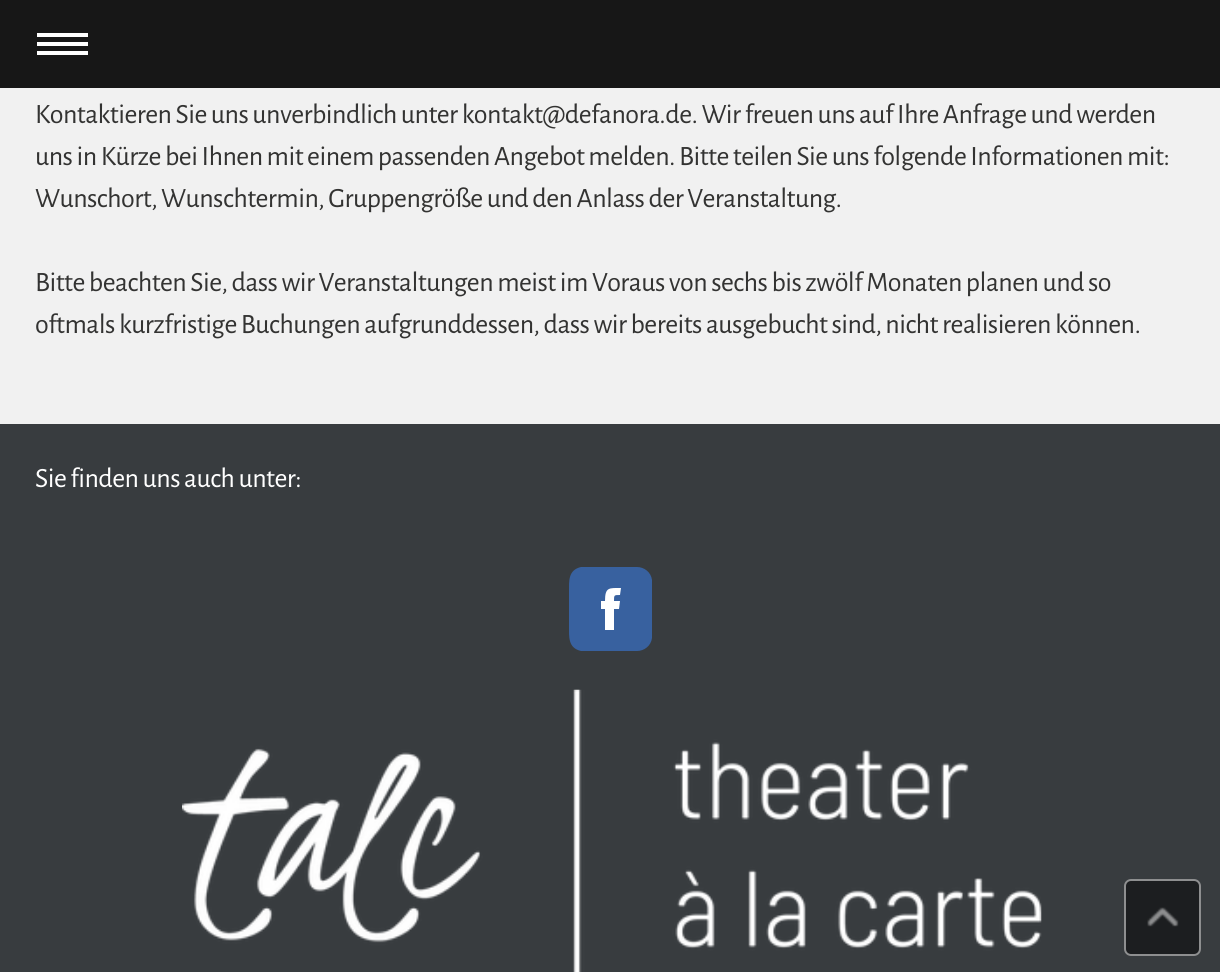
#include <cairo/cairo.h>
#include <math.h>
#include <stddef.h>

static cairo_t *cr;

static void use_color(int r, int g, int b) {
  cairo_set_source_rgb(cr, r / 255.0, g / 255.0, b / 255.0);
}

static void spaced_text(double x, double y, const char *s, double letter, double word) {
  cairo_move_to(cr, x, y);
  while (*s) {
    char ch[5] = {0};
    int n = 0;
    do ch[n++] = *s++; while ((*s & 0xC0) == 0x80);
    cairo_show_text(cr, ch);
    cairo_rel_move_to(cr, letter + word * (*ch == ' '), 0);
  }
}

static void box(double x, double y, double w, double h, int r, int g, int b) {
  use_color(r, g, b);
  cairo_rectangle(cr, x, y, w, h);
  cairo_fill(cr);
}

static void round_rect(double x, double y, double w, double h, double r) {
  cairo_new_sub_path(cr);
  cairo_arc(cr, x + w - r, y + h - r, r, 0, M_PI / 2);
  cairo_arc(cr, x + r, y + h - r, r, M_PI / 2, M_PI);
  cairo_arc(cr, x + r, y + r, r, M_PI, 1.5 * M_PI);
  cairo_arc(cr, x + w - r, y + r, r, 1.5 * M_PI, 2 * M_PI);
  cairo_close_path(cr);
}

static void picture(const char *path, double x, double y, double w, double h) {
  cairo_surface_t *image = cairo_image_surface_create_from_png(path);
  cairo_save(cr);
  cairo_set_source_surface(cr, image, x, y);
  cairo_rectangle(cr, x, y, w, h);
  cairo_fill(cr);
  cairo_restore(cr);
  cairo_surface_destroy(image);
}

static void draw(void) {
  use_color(241, 241, 241);
  cairo_paint(cr);
  box(0, 0, 1220, 88, 23, 23, 23);
  box(37, 42, 51, 4, 255, 255, 255);
  box(37, 33, 51, 4, 255, 255, 255);
  box(37, 51, 51, 4, 255, 255, 255);
  box(0, 424, 1220, 548, 56, 60, 63);
  use_color(56, 97, 159);
  cairo_new_path(cr);
  cairo_move_to(cr, 637, 651);
  cairo_line_to(cr, 581, 651);
  cairo_curve_to(cr, 568, 648, 569, 637, 569, 626);
  cairo_line_to(cr, 569, 592);
  cairo_curve_to(cr, 569, 581, 568, 570, 581, 567);
  cairo_line_to(cr, 637, 567);
  cairo_curve_to(cr, 644, 567, 651, 572, 652, 580);
  cairo_line_to(cr, 652, 638);
  cairo_curve_to(cr, 651, 646, 644, 651, 637, 651);
  cairo_close_path(cr);
  cairo_fill(cr);
  use_color(255, 255, 255);
  cairo_new_path(cr);
  cairo_move_to(cr, 621, 588);
  cairo_curve_to(cr, 609, 588, 605, 587, 605, 601);
  cairo_line_to(cr, 601, 601);
  cairo_line_to(cr, 601, 609);
  cairo_line_to(cr, 605, 609);
  cairo_line_to(cr, 605, 630);
  cairo_line_to(cr, 614, 630);
  cairo_line_to(cr, 614, 609);
  cairo_line_to(cr, 619, 609);
  cairo_line_to(cr, 620, 601);
  cairo_line_to(cr, 614, 601);
  cairo_curve_to(cr, 614, 595, 614, 595, 620, 595);
  cairo_close_path(cr);
  cairo_fill(cr);
  picture("img_01.png", 182, 689, 860, 283);
  use_color(28, 30, 32);
  round_rect(1124, 879, 77, 77, 7);
  cairo_fill(cr);
  round_rect(1125, 880, 75, 75, 6);
  cairo_set_source_rgba(cr, 1, 1, 1, 0.5);
  cairo_stroke(cr);
  picture("img_02.png", 1147, 907, 32, 20);
  cairo_select_font_face(cr, "Alegreya Sans", CAIRO_FONT_SLANT_NORMAL, CAIRO_FONT_WEIGHT_NORMAL);
  cairo_set_font_size(cr, 28);
  use_color(51, 51, 50);
  spaced_text(35, 123, "Kontaktieren Sie uns unverbindlich unter kontakt@defanora.de. Wir freuen uns auf Ihre Anfrage und werden", -0.56, 0);
  spaced_text(35, 165, "uns in Kürze bei Ihnen mit einem passenden Angebot melden. Bitte teilen Sie uns folgende Informationen mit:", -0.56, 0);
  spaced_text(35, 207, "Wunschort, Wunschtermin, Gruppengröße und den Anlass der Veranstaltung.", -0.56, 0);
  spaced_text(35, 291, "Bitte beachten Sie, dass wir Veranstaltungen meist im Voraus von sechs bis zwölf Monaten planen und so", -0.56, 0);
  spaced_text(35, 333, "oftmals kurzfristige Buchungen aufgrunddessen, dass wir bereits ausgebucht sind, nicht realisieren können.", -0.56, 0);
  use_color(255, 255, 255);
  spaced_text(35, 487, "Sie finden uns auch unter:", -0.56, 0);
}

int main(void) {
  cairo_surface_t *surface = cairo_image_surface_create(CAIRO_FORMAT_RGB24, 1220, 972);
  cr = cairo_create(surface);
  cairo_font_options_t *options = cairo_font_options_create();
  cairo_font_options_set_hint_metrics(options, CAIRO_HINT_METRICS_OFF);
  cairo_font_options_set_hint_style(options, CAIRO_HINT_STYLE_NONE);
  cairo_set_font_options(cr, options);
  cairo_set_miter_limit(cr, 4);
  draw();
  cairo_surface_write_to_png(surface, "out.png");
  cairo_font_options_destroy(options);
  cairo_destroy(cr);
  cairo_surface_destroy(surface);
  return 0;
}
